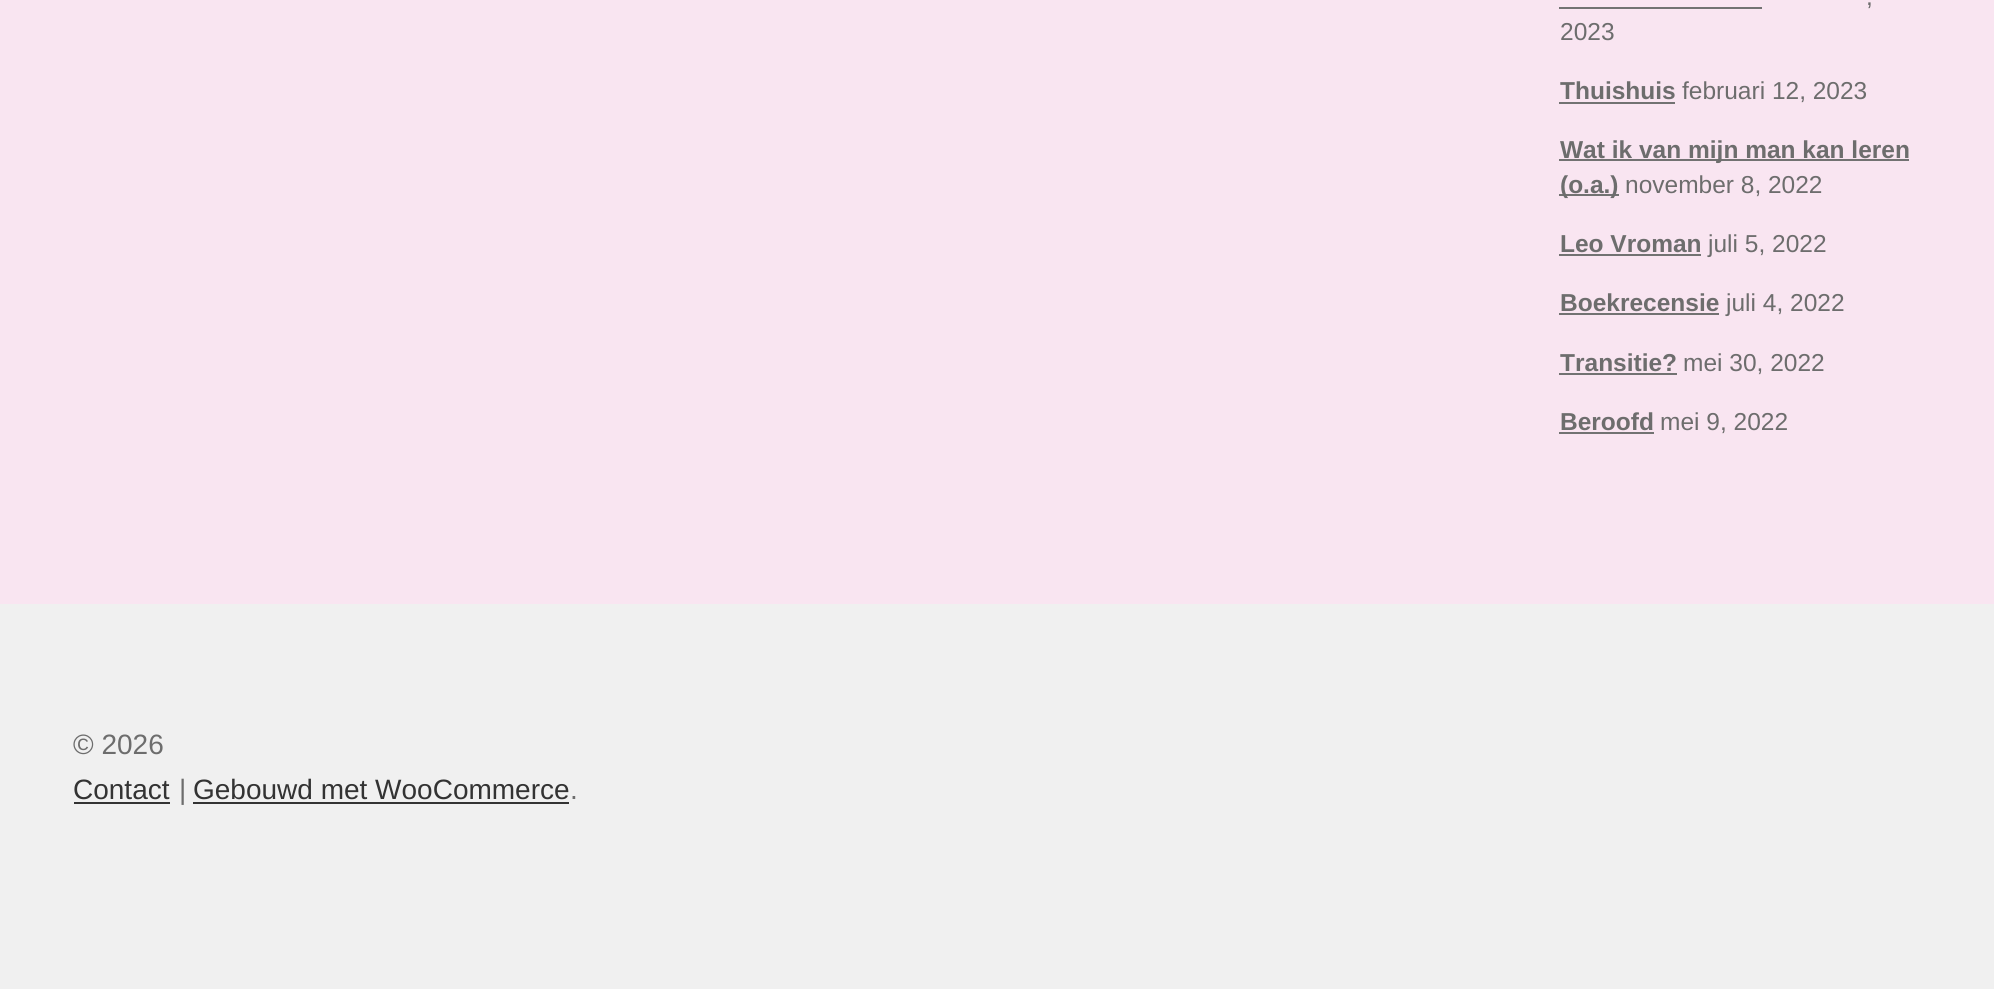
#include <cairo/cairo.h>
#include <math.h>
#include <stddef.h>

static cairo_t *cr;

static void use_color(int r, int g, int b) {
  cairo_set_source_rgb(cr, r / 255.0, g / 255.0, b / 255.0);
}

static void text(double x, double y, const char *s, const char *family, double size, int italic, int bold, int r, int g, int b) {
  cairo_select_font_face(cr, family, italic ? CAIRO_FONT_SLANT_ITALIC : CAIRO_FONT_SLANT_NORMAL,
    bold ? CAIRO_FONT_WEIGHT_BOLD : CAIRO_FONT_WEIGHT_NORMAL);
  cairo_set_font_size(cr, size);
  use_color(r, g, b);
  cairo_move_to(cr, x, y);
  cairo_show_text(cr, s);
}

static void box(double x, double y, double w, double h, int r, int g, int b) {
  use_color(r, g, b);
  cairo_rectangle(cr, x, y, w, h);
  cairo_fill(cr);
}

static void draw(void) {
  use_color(249, 229, 241);
  cairo_paint(cr);
  box(1559, 7, 203, 2, 114, 114, 114);
  box(1559, 102, 116, 2, 114, 114, 114);
  box(1559, 159, 350, 2, 114, 114, 114);
  box(1559, 194, 60, 2, 114, 114, 114);
  box(1559, 254, 142, 2, 114, 114, 114);
  box(1559, 313, 160, 2, 114, 114, 114);
  box(1559, 373, 118, 2, 114, 114, 114);
  box(1559, 432, 95, 2, 114, 114, 114);
  box(0, 604, 1994, 385, 240, 240, 240);
  box(74, 802, 96, 2, 51, 51, 51);
  box(193, 802, 376, 2, 51, 51, 51);
  text(1866, 5, ",", "Liberation Sans", 24.5, 0, 0, 109, 109, 109);
  text(1560, 40, "2023", "Liberation Sans", 24.5, 0, 0, 109, 109, 109);
  text(1560, 99, "Thuishuis", "Liberation Sans", 24.5, 0, 1, 109, 109, 109);
  text(1682, 99, "februari 12, 2023", "Liberation Sans", 24.5, 0, 0, 109, 109, 109);
  text(1560, 158, "Wat ik van mijn man kan leren", "Liberation Sans", 24.5, 0, 1, 109, 109, 109);
  text(1560, 193, "(o.a.)", "Liberation Sans", 24.5, 0, 1, 109, 109, 109);
  text(1625, 193, "november 8, 2022", "Liberation Sans", 24.5, 0, 0, 109, 109, 109);
  text(1560, 252, "Leo Vroman", "Liberation Sans", 24.5, 0, 1, 109, 109, 109);
  text(1708, 252, "juli 5, 2022", "Liberation Sans", 24.5, 0, 0, 109, 109, 109);
  text(1560, 311, "Boekrecensie", "Liberation Sans", 24.5, 0, 1, 109, 109, 109);
  text(1726, 311, "juli 4, 2022", "Liberation Sans", 24.5, 0, 0, 109, 109, 109);
  text(1560, 371, "Transitie?", "Liberation Sans", 24.5, 0, 1, 109, 109, 109);
  text(1683, 371, "mei 30, 2022", "Liberation Sans", 24.5, 0, 0, 109, 109, 109);
  text(1560, 430, "Beroofd", "Liberation Sans", 24.5, 0, 1, 109, 109, 109);
  text(1660, 430, "mei 9, 2022", "Liberation Sans", 24.5, 0, 0, 109, 109, 109);
  text(73, 754, "© 2026", "Liberation Sans", 28, 0, 0, 109, 109, 109);
  text(73, 799, "Contact", "Liberation Sans", 28, 0, 0, 51, 51, 51);
  text(179, 799, "|", "Liberation Sans", 28, 0, 0, 109, 109, 109);
  text(193, 799, "Gebouwd met WooCommerce", "Liberation Sans", 28, 0, 0, 51, 51, 51);
  text(570, 799, ".", "Liberation Sans", 28, 0, 0, 109, 109, 109);
}

int main(void) {
  cairo_surface_t *surface = cairo_image_surface_create(CAIRO_FORMAT_RGB24, 1994, 989);
  cr = cairo_create(surface);
  cairo_font_options_t *options = cairo_font_options_create();
  cairo_font_options_set_hint_metrics(options, CAIRO_HINT_METRICS_OFF);
  cairo_font_options_set_hint_style(options, CAIRO_HINT_STYLE_NONE);
  cairo_set_font_options(cr, options);
  cairo_set_miter_limit(cr, 4);
  draw();
  cairo_surface_write_to_png(surface, "out.png");
  cairo_font_options_destroy(options);
  cairo_destroy(cr);
  cairo_surface_destroy(surface);
  return 0;
}
